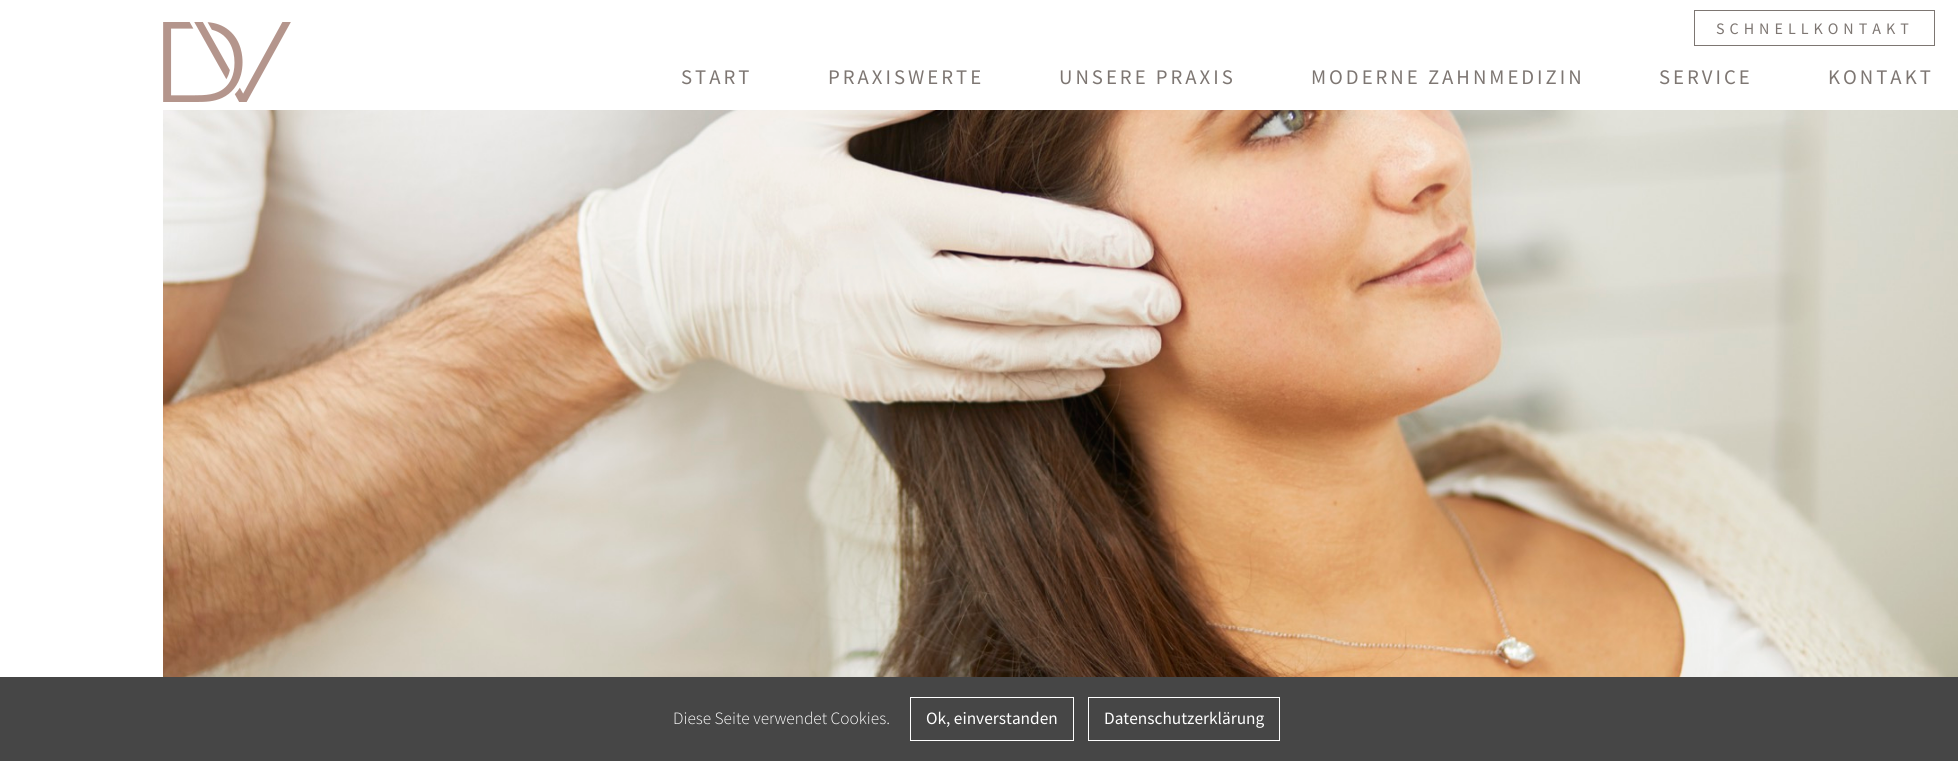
#include <cairo/cairo.h>
#include <math.h>
#include <stddef.h>

static cairo_t *cr;

static void use_color(int r, int g, int b) {
  cairo_set_source_rgb(cr, r / 255.0, g / 255.0, b / 255.0);
}

static void text(double x, double y, const char *s, const char *family, double size, int italic, int bold, int r, int g, int b) {
  cairo_select_font_face(cr, family, italic ? CAIRO_FONT_SLANT_ITALIC : CAIRO_FONT_SLANT_NORMAL,
    bold ? CAIRO_FONT_WEIGHT_BOLD : CAIRO_FONT_WEIGHT_NORMAL);
  cairo_set_font_size(cr, size);
  use_color(r, g, b);
  cairo_move_to(cr, x, y);
  cairo_show_text(cr, s);
}

static void spaced_text(double x, double y, const char *s, double letter, double word) {
  cairo_move_to(cr, x, y);
  while (*s) {
    char ch[5] = {0};
    int n = 0;
    do ch[n++] = *s++; while ((*s & 0xC0) == 0x80);
    cairo_show_text(cr, ch);
    cairo_rel_move_to(cr, letter + word * (*ch == ' '), 0);
  }
}

static void box(double x, double y, double w, double h, int r, int g, int b) {
  use_color(r, g, b);
  cairo_rectangle(cr, x, y, w, h);
  cairo_fill(cr);
}

static void picture(const char *path, double x, double y, double w, double h) {
  cairo_surface_t *image = cairo_image_surface_create_from_png(path);
  cairo_save(cr);
  cairo_set_source_surface(cr, image, x, y);
  cairo_rectangle(cr, x, y, w, h);
  cairo_fill(cr);
  cairo_restore(cr);
  cairo_surface_destroy(image);
}

static void draw(void) {
  use_color(255, 255, 255);
  cairo_paint(cr);
  picture("img_01.png", 163, 22, 128, 80);
  cairo_rectangle(cr, 1694.5, 10.5, 240, 35);
  use_color(125, 118, 114);
  cairo_set_line_width(cr, 1);
  cairo_stroke(cr);
  picture("img_02.png", 163, 110, 1795, 567);
  box(0, 677, 1958, 84, 70, 70, 70);
  cairo_rectangle(cr, 910.5, 697.5, 163, 43);
  use_color(255, 255, 255);
  cairo_stroke(cr);
  cairo_rectangle(cr, 1088.5, 697.5, 191, 43);
  cairo_stroke(cr);
  cairo_select_font_face(cr, "Source Sans Pro", CAIRO_FONT_SLANT_NORMAL, CAIRO_FONT_WEIGHT_NORMAL);
  cairo_set_font_size(cr, 16);
  use_color(125, 118, 114);
  spaced_text(1716, 34, "SCHNELLKONTAKT", 5, 0);
  cairo_set_font_size(cr, 20.75);
  spaced_text(681, 84, "START", 3, 0);
  spaced_text(828, 84, "PRAXISWERTE", 3, 0);
  spaced_text(1059, 84, "UNSERE PRAXIS", 3, 0);
  spaced_text(1311, 84, "MODERNE ZAHNMEDIZIN", 3, 0);
  spaced_text(1659, 84, "SERVICE", 3, 0);
  spaced_text(1828, 84, "KONTAKT", 3, 0);
  text(673, 724, "Diese Seite verwendet Cookies.", "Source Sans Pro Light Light", 17.3, 0, 0, 255, 255, 255);
  text(926, 724, "Ok, einverstanden", "Source Sans Pro", 17.3, 0, 0, 255, 255, 255);
  text(1104, 724, "Datenschutzerklärung", "Source Sans Pro", 17.3, 0, 0, 255, 255, 255);
}

int main(void) {
  cairo_surface_t *surface = cairo_image_surface_create(CAIRO_FORMAT_RGB24, 1958, 761);
  cr = cairo_create(surface);
  cairo_font_options_t *options = cairo_font_options_create();
  cairo_font_options_set_hint_metrics(options, CAIRO_HINT_METRICS_OFF);
  cairo_font_options_set_hint_style(options, CAIRO_HINT_STYLE_NONE);
  cairo_set_font_options(cr, options);
  cairo_set_miter_limit(cr, 4);
  draw();
  cairo_surface_write_to_png(surface, "out.png");
  cairo_font_options_destroy(options);
  cairo_destroy(cr);
  cairo_surface_destroy(surface);
  return 0;
}
